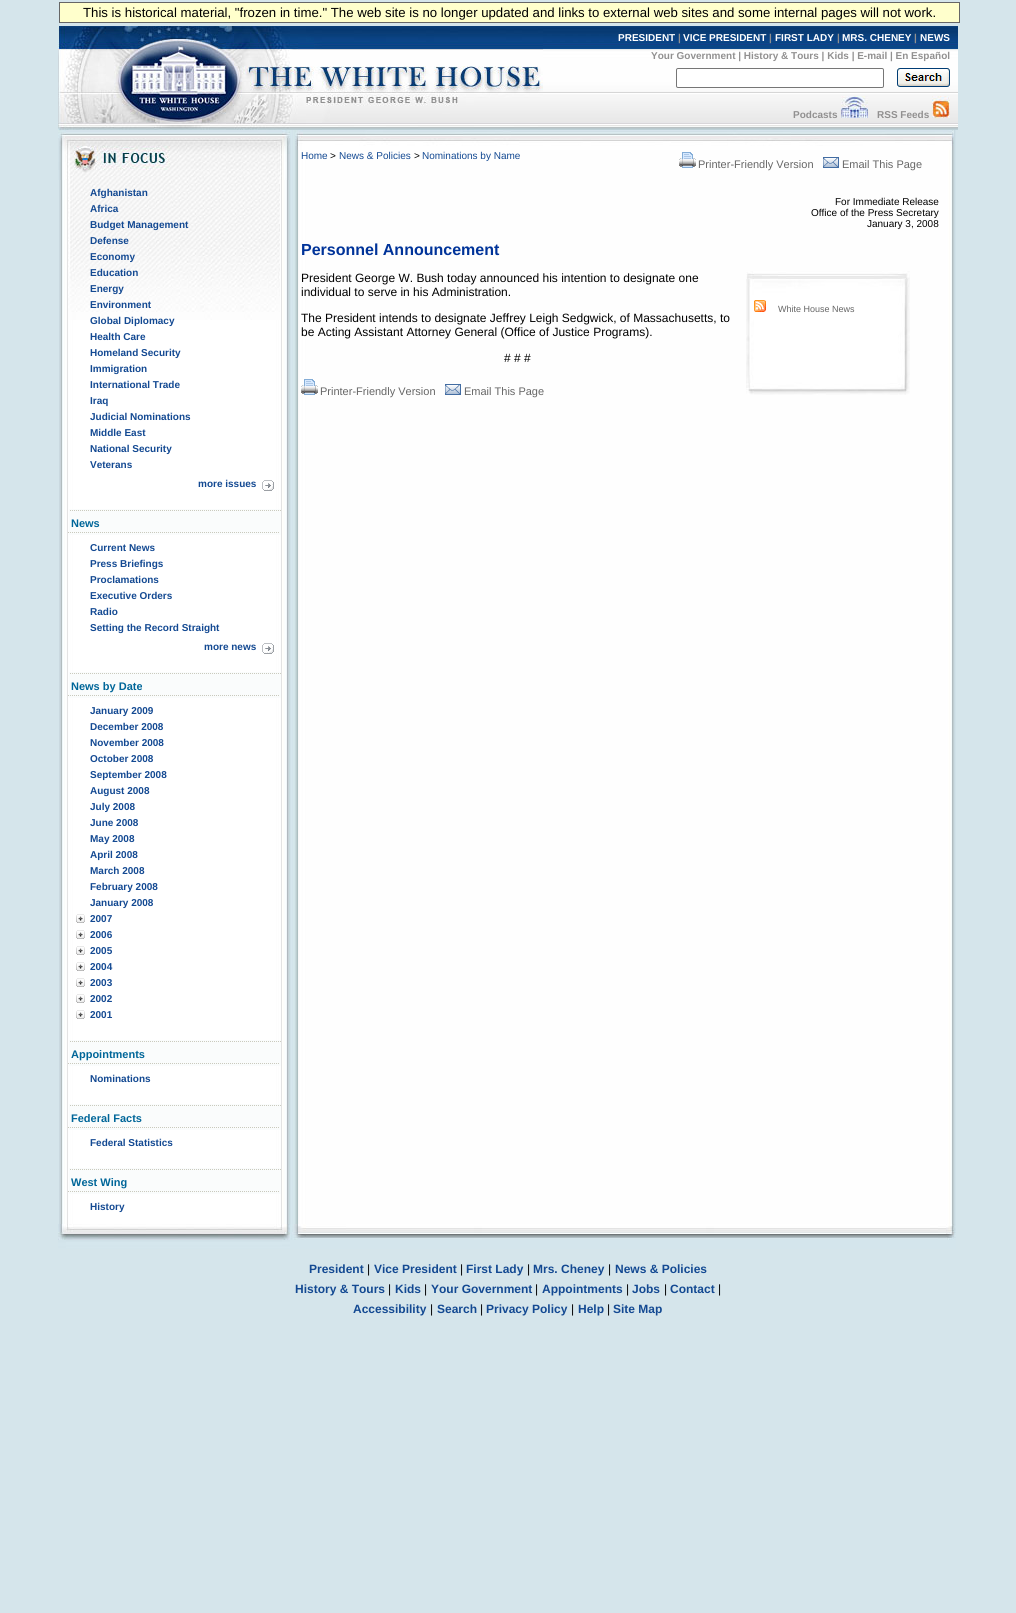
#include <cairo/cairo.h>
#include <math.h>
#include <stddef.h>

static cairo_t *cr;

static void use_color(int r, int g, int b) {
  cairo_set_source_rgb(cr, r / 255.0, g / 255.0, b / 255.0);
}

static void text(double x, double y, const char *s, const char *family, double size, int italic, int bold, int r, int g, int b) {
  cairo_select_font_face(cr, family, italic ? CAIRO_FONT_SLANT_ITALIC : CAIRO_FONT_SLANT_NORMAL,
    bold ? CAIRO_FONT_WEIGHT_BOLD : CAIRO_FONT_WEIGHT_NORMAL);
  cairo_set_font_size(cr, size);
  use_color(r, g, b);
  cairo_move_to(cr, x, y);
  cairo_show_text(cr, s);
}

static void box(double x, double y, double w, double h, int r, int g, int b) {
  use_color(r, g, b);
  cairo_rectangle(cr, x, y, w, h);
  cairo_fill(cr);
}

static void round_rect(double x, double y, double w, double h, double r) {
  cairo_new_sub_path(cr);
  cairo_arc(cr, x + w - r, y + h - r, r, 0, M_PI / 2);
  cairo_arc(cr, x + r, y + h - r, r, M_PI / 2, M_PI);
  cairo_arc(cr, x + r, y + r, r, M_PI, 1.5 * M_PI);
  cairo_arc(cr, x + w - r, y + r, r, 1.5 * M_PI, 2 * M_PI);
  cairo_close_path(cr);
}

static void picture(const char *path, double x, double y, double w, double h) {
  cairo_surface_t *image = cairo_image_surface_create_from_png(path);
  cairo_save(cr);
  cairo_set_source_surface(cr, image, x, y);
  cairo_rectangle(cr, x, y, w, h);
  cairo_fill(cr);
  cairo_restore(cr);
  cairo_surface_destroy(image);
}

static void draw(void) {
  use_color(213, 229, 235);
  cairo_paint(cr);
  use_color(255, 255, 204);
  cairo_rectangle(cr, 59.5, 2.5, 900, 20);
  cairo_fill_preserve(cr);
  use_color(102, 102, 102);
  cairo_set_line_width(cr, 1);
  cairo_stroke(cr);
  picture("img_01.png", 543, 26, 415, 104);
  picture("img_02.png", 58, 26, 485, 104);
  use_color(255, 255, 255);
  round_rect(676.5, 68.5, 207, 19, 1.5);
  cairo_fill_preserve(cr);
  use_color(118, 118, 118);
  cairo_stroke(cr);
  picture("img_03.png", 897, 68, 53, 19);
  picture("img_04.png", 841, 96, 27, 22);
  picture("img_05.png", 932, 96, 18, 22);
  picture("img_06.png", 59, 130, 897, 1094);
  picture("img_07.png", 295, 130, 659, 20);
  picture("img_08.png", 60, 180, 229, 1044);
  picture("img_09.png", 58, 130, 233, 50);
  picture("img_10.png", 68, 176, 212, 144);
  picture("img_11.png", 262, 480, 12, 11);
  box(69, 509, 212, 26, 250, 252, 252);
  picture("img_12.png", 70, 510, 211, 1);
  picture("img_13.png", 68, 532, 211, 1);
  picture("img_11.png", 262, 643, 12, 11);
  box(69, 672, 212, 26, 250, 252, 252);
  picture("img_12.png", 70, 673, 211, 1);
  picture("img_13.png", 68, 695, 211, 1);
  picture("img_14.png", 76, 914, 9, 9);
  picture("img_14.png", 76, 930, 9, 9);
  picture("img_14.png", 76, 946, 9, 9);
  picture("img_14.png", 76, 962, 9, 9);
  picture("img_14.png", 76, 978, 9, 9);
  picture("img_14.png", 76, 994, 9, 9);
  picture("img_14.png", 76, 1010, 9, 9);
  box(69, 1040, 212, 26, 250, 252, 252);
  picture("img_12.png", 70, 1041, 211, 1);
  picture("img_13.png", 68, 1063, 211, 1);
  box(69, 1104, 212, 26, 250, 252, 252);
  picture("img_12.png", 70, 1105, 211, 1);
  picture("img_13.png", 68, 1127, 211, 1);
  box(69, 1168, 212, 26, 250, 252, 252);
  picture("img_12.png", 70, 1169, 211, 1);
  picture("img_13.png", 68, 1191, 211, 1);
  picture("img_15.png", 679, 152, 17, 16);
  picture("img_16.png", 823, 157, 16, 11);
  picture("img_17.png", 746, 271, 164, 124);
  picture("img_18.png", 754, 300, 12, 12);
  picture("img_19.png", 301, 379, 17, 16);
  picture("img_16.png", 445, 384, 16, 11);
  picture("img_20.png", 58, 1224, 898, 25);
  text(83, 17, "This is historical material, \"frozen in time.\" The web site is no longer updated and links to external web sites and some internal pages will not work.", "Liberation Sans", 13.2, 0, 0, 0, 0, 0);
  text(618, 41, "PRESIDENT", "Liberation Sans", 10, 0, 1, 255, 255, 255);
  text(678, 41, "|", "Liberation Sans", 10, 0, 1, 145, 144, 144);
  text(683, 41, "VICE PRESIDENT", "Liberation Sans", 10, 0, 1, 255, 255, 255);
  text(769, 41, "|", "Liberation Sans", 10, 0, 1, 145, 144, 144);
  text(775, 41, "FIRST LADY", "Liberation Sans", 10, 0, 1, 255, 255, 255);
  text(837, 41, "|", "Liberation Sans", 10, 0, 1, 145, 144, 144);
  text(842, 41, "MRS. CHENEY", "Liberation Sans", 10, 0, 1, 255, 255, 255);
  text(914, 41, "|", "Liberation Sans", 10, 0, 1, 145, 144, 144);
  text(920, 41, "NEWS", "Liberation Sans", 10, 0, 1, 255, 255, 255);
  text(651, 59, "Your Government | History & Tours | Kids | E-mail | En Español", "Liberation Sans", 10, 0, 1, 145, 144, 144);
  text(793, 118, "Podcasts", "Liberation Sans", 10, 0, 1, 145, 144, 144);
  text(877, 118, "RSS Feeds", "Liberation Sans", 10, 0, 1, 145, 144, 144);
  text(90, 196, "Afghanistan", "Liberation Sans", 10, 0, 1, 19, 73, 146);
  text(90, 212, "Africa", "Liberation Sans", 10, 0, 1, 19, 73, 146);
  text(90, 228, "Budget Management", "Liberation Sans", 10, 0, 1, 19, 73, 146);
  text(90, 244, "Defense", "Liberation Sans", 10, 0, 1, 19, 73, 146);
  text(90, 260, "Economy", "Liberation Sans", 10, 0, 1, 19, 73, 146);
  text(90, 276, "Education", "Liberation Sans", 10, 0, 1, 19, 73, 146);
  text(90, 292, "Energy", "Liberation Sans", 10, 0, 1, 19, 73, 146);
  text(90, 308, "Environment", "Liberation Sans", 10, 0, 1, 19, 73, 146);
  text(90, 324, "Global Diplomacy", "Liberation Sans", 10, 0, 1, 19, 73, 146);
  text(90, 340, "Health Care", "Liberation Sans", 10, 0, 1, 19, 73, 146);
  text(90, 356, "Homeland Security", "Liberation Sans", 10, 0, 1, 19, 73, 146);
  text(90, 372, "Immigration", "Liberation Sans", 10, 0, 1, 19, 73, 146);
  text(90, 388, "International Trade", "Liberation Sans", 10, 0, 1, 19, 73, 146);
  text(90, 404, "Iraq", "Liberation Sans", 10, 0, 1, 19, 73, 146);
  text(90, 420, "Judicial Nominations", "Liberation Sans", 10, 0, 1, 19, 73, 146);
  text(90, 436, "Middle East", "Liberation Sans", 10, 0, 1, 19, 73, 146);
  text(90, 452, "National Security", "Liberation Sans", 10, 0, 1, 19, 73, 146);
  text(90, 468, "Veterans", "Liberation Sans", 10, 0, 1, 19, 73, 146);
  text(198, 487, "more issues", "Liberation Sans", 10, 0, 1, 19, 73, 146);
  text(71, 527, "News", "Liberation Sans", 11, 0, 1, 0, 102, 153);
  text(90, 551, "Current News", "Liberation Sans", 10, 0, 1, 19, 73, 146);
  text(90, 567, "Press Briefings", "Liberation Sans", 10, 0, 1, 19, 73, 146);
  text(90, 583, "Proclamations", "Liberation Sans", 10, 0, 1, 19, 73, 146);
  text(90, 599, "Executive Orders", "Liberation Sans", 10, 0, 1, 19, 73, 146);
  text(90, 615, "Radio", "Liberation Sans", 10, 0, 1, 19, 73, 146);
  text(90, 631, "Setting the Record Straight", "Liberation Sans", 10, 0, 1, 19, 73, 146);
  text(204, 650, "more news", "Liberation Sans", 10, 0, 1, 19, 73, 146);
  text(71, 690, "News by Date", "Liberation Sans", 11, 0, 1, 0, 102, 153);
  text(90, 714, "January 2009", "Liberation Sans", 10, 0, 1, 19, 73, 146);
  text(90, 730, "December 2008", "Liberation Sans", 10, 0, 1, 19, 73, 146);
  text(90, 746, "November 2008", "Liberation Sans", 10, 0, 1, 19, 73, 146);
  text(90, 762, "October 2008", "Liberation Sans", 10, 0, 1, 19, 73, 146);
  text(90, 778, "September 2008", "Liberation Sans", 10, 0, 1, 19, 73, 146);
  text(90, 794, "August 2008", "Liberation Sans", 10, 0, 1, 19, 73, 146);
  text(90, 810, "July 2008", "Liberation Sans", 10, 0, 1, 19, 73, 146);
  text(90, 826, "June 2008", "Liberation Sans", 10, 0, 1, 19, 73, 146);
  text(90, 842, "May 2008", "Liberation Sans", 10, 0, 1, 19, 73, 146);
  text(90, 858, "April 2008", "Liberation Sans", 10, 0, 1, 19, 73, 146);
  text(90, 874, "March 2008", "Liberation Sans", 10, 0, 1, 19, 73, 146);
  text(90, 890, "February 2008", "Liberation Sans", 10, 0, 1, 19, 73, 146);
  text(90, 906, "January 2008", "Liberation Sans", 10, 0, 1, 19, 73, 146);
  text(90, 922, "2007", "Liberation Sans", 10, 0, 1, 19, 73, 146);
  text(90, 938, "2006", "Liberation Sans", 10, 0, 1, 19, 73, 146);
  text(90, 954, "2005", "Liberation Sans", 10, 0, 1, 19, 73, 146);
  text(90, 970, "2004", "Liberation Sans", 10, 0, 1, 19, 73, 146);
  text(90, 986, "2003", "Liberation Sans", 10, 0, 1, 19, 73, 146);
  text(90, 1002, "2002", "Liberation Sans", 10, 0, 1, 19, 73, 146);
  text(90, 1018, "2001", "Liberation Sans", 10, 0, 1, 19, 73, 146);
  text(71, 1058, "Appointments", "Liberation Sans", 11, 0, 1, 0, 102, 153);
  text(90, 1082, "Nominations", "Liberation Sans", 10, 0, 1, 19, 73, 146);
  text(71, 1122, "Federal Facts", "Liberation Sans", 11, 0, 1, 0, 102, 153);
  text(90, 1146, "Federal Statistics", "Liberation Sans", 10, 0, 1, 19, 73, 146);
  text(71, 1186, "West Wing", "Liberation Sans", 11, 0, 1, 0, 102, 153);
  text(90, 1210, "History", "Liberation Sans", 10, 0, 1, 19, 73, 146);
  text(301, 159, "Home", "Liberation Sans", 10, 0, 0, 19, 73, 146);
  text(330, 159, ">", "Liberation Sans", 10, 0, 0, 0, 0, 0);
  text(339, 159, "News & Policies", "Liberation Sans", 10, 0, 0, 19, 73, 146);
  text(414, 159, ">", "Liberation Sans", 10, 0, 0, 0, 0, 0);
  text(422, 159, "Nominations by Name", "Liberation Sans", 10, 0, 0, 19, 73, 146);
  text(698, 168, "Printer-Friendly Version", "Liberation Sans", 11, 0, 0, 102, 102, 102);
  text(842, 168, "Email This Page", "Liberation Sans", 11, 0, 0, 102, 102, 102);
  text(835, 205, "For Immediate Release", "Liberation Sans", 10, 0, 0, 0, 0, 0);
  text(811, 216, "Office of the Press Secretary", "Liberation Sans", 10, 0, 0, 0, 0, 0);
  text(867, 227, "January 3, 2008", "Liberation Sans", 10, 0, 0, 0, 0, 0);
  text(301, 255, "Personnel Announcement", "Liberation Sans", 16, 0, 1, 0, 51, 153);
  text(301, 282, "President George W. Bush today announced his intention to designate one", "Liberation Sans", 12, 0, 0, 0, 0, 0);
  text(301, 296, "individual to serve in his Administration.", "Liberation Sans", 12, 0, 0, 0, 0, 0);
  text(778, 312, "White House News", "Liberation Sans", 9, 0, 0, 102, 102, 102);
  text(301, 322, "The President intends to designate Jeffrey Leigh Sedgwick, of Massachusetts, to", "Liberation Sans", 12, 0, 0, 0, 0, 0);
  text(301, 336, "be Acting Assistant Attorney General (Office of Justice Programs).", "Liberation Sans", 12, 0, 0, 0, 0, 0);
  text(504, 362, "# # #", "Liberation Sans", 12, 0, 0, 0, 0, 0);
  text(320, 395, "Printer-Friendly Version", "Liberation Sans", 11, 0, 0, 102, 102, 102);
  text(464, 395, "Email This Page", "Liberation Sans", 11, 0, 0, 102, 102, 102);
  text(309, 1273, "President", "Liberation Sans", 12, 0, 1, 19, 73, 146);
  text(367, 1273, "|", "Liberation Sans", 12, 0, 0, 0, 0, 0);
  text(374, 1273, "Vice President", "Liberation Sans", 12, 0, 1, 19, 73, 146);
  text(460, 1273, "|", "Liberation Sans", 12, 0, 0, 0, 0, 0);
  text(466, 1273, "First Lady", "Liberation Sans", 12, 0, 1, 19, 73, 146);
  text(527, 1273, "|", "Liberation Sans", 12, 0, 0, 0, 0, 0);
  text(533, 1273, "Mrs. Cheney", "Liberation Sans", 12, 0, 1, 19, 73, 146);
  text(608, 1273, "|", "Liberation Sans", 12, 0, 0, 0, 0, 0);
  text(615, 1273, "News & Policies", "Liberation Sans", 12, 0, 1, 19, 73, 146);
  text(295, 1293, "History & Tours", "Liberation Sans", 12, 0, 1, 19, 73, 146);
  text(388, 1293, "|", "Liberation Sans", 12, 0, 0, 0, 0, 0);
  text(395, 1293, "Kids", "Liberation Sans", 12, 0, 1, 19, 73, 146);
  text(424, 1293, "|", "Liberation Sans", 12, 0, 0, 0, 0, 0);
  text(431, 1293, "Your Government", "Liberation Sans", 12, 0, 1, 19, 73, 146);
  text(535, 1293, "|", "Liberation Sans", 12, 0, 0, 0, 0, 0);
  text(542, 1293, "Appointments", "Liberation Sans", 12, 0, 1, 19, 73, 146);
  text(626, 1293, "|", "Liberation Sans", 12, 0, 0, 0, 0, 0);
  text(632, 1293, "Jobs", "Liberation Sans", 12, 0, 1, 19, 73, 146);
  text(664, 1293, "|", "Liberation Sans", 12, 0, 0, 0, 0, 0);
  text(670, 1293, "Contact", "Liberation Sans", 12, 0, 1, 19, 73, 146);
  text(718, 1293, "|", "Liberation Sans", 12, 0, 0, 0, 0, 0);
  text(353, 1313, "Accessibility", "Liberation Sans", 12, 0, 1, 19, 73, 146);
  text(430, 1313, "|", "Liberation Sans", 12, 0, 0, 0, 0, 0);
  text(437, 1313, "Search", "Liberation Sans", 12, 0, 1, 19, 73, 146);
  text(480, 1313, "|", "Liberation Sans", 12, 0, 0, 0, 0, 0);
  text(486, 1313, "Privacy Policy", "Liberation Sans", 12, 0, 1, 19, 73, 146);
  text(571, 1313, "|", "Liberation Sans", 12, 0, 0, 0, 0, 0);
  text(578, 1313, "Help", "Liberation Sans", 12, 0, 1, 19, 73, 146);
  text(607, 1313, "|", "Liberation Sans", 12, 0, 0, 0, 0, 0);
  text(613, 1313, "Site Map", "Liberation Sans", 12, 0, 1, 19, 73, 146);
}

int main(void) {
  cairo_surface_t *surface = cairo_image_surface_create(CAIRO_FORMAT_RGB24, 1016, 1613);
  cr = cairo_create(surface);
  cairo_font_options_t *options = cairo_font_options_create();
  cairo_font_options_set_hint_metrics(options, CAIRO_HINT_METRICS_OFF);
  cairo_font_options_set_hint_style(options, CAIRO_HINT_STYLE_NONE);
  cairo_set_font_options(cr, options);
  cairo_set_miter_limit(cr, 4);
  draw();
  cairo_surface_write_to_png(surface, "out.png");
  cairo_font_options_destroy(options);
  cairo_destroy(cr);
  cairo_surface_destroy(surface);
  return 0;
}
